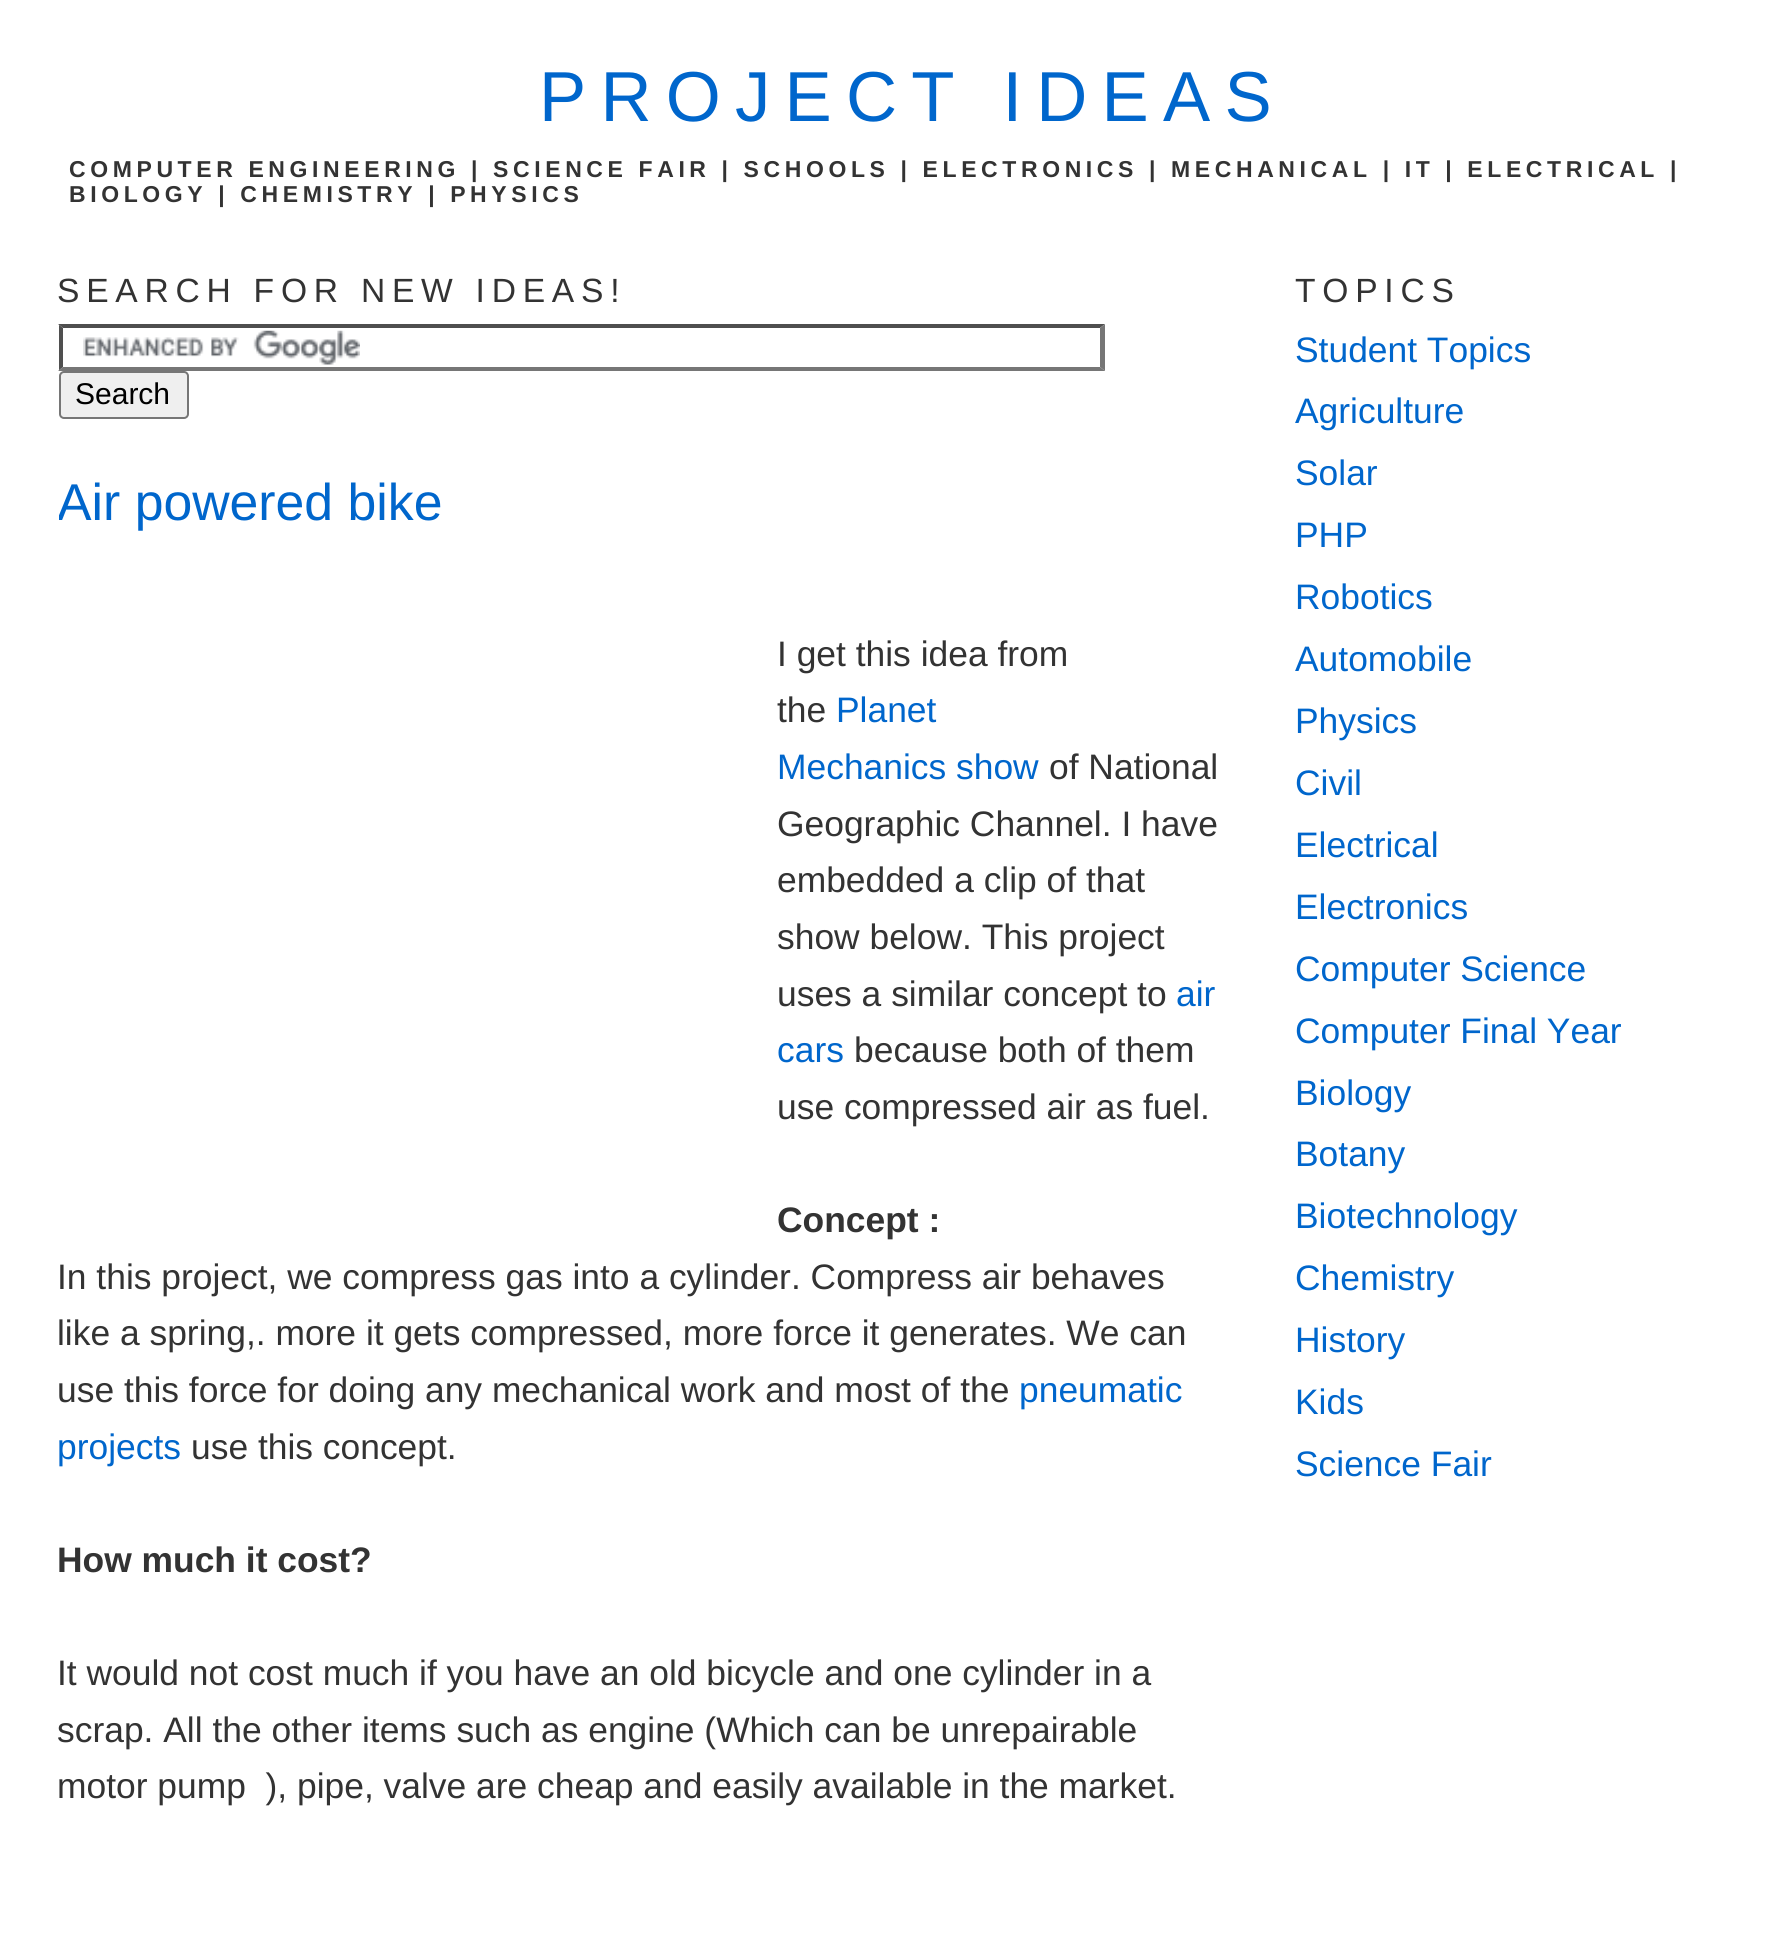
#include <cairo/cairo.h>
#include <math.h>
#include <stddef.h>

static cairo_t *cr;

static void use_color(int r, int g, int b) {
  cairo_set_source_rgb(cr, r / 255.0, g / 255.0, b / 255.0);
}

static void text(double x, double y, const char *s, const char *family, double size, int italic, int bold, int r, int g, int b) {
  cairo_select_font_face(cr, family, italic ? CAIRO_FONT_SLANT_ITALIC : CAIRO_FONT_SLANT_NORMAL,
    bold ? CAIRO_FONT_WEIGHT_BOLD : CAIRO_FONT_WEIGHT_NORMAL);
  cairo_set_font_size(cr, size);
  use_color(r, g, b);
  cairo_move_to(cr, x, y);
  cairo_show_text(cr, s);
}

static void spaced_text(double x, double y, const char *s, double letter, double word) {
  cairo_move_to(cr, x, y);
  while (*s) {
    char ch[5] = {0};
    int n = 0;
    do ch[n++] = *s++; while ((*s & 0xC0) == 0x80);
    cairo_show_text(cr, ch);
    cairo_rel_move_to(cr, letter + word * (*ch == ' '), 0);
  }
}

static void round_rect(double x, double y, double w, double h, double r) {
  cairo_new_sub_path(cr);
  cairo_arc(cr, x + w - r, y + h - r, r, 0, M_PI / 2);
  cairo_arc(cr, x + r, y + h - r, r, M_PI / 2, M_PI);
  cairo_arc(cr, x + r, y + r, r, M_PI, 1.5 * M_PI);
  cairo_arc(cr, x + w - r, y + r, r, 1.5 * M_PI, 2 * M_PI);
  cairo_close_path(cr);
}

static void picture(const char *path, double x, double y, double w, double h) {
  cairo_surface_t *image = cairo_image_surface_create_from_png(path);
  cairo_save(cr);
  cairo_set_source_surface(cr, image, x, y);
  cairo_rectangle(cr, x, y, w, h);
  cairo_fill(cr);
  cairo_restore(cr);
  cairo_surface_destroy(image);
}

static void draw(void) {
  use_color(255, 255, 255);
  cairo_paint(cr);
  picture("img_01.png", 83, 330, 277, 35);
  use_color(79, 79, 79);
  cairo_new_path(cr);
  cairo_move_to(cr, 58, 324);
  cairo_line_to(cr, 1105, 324);
  cairo_line_to(cr, 1100, 328);
  cairo_line_to(cr, 63, 328);
  cairo_close_path(cr);
  cairo_fill(cr);
  use_color(118, 118, 118);
  cairo_new_path(cr);
  cairo_move_to(cr, 1105, 324);
  cairo_line_to(cr, 1105, 371);
  cairo_line_to(cr, 1100, 367);
  cairo_line_to(cr, 1100, 328);
  cairo_close_path(cr);
  cairo_fill(cr);
  cairo_new_path(cr);
  cairo_move_to(cr, 1105, 371);
  cairo_line_to(cr, 58, 371);
  cairo_line_to(cr, 63, 367);
  cairo_line_to(cr, 1100, 367);
  cairo_close_path(cr);
  cairo_fill(cr);
  cairo_save(cr);
  cairo_rectangle(cr, 59, 252, 1167, 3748);
  cairo_clip(cr);
  use_color(79, 79, 79);
  cairo_new_path(cr);
  cairo_move_to(cr, 58, 371);
  cairo_line_to(cr, 58, 324);
  cairo_line_to(cr, 63, 328);
  cairo_line_to(cr, 63, 367);
  cairo_close_path(cr);
  cairo_fill(cr);
  cairo_restore(cr);
  use_color(239, 239, 239);
  round_rect(60, 372, 128, 46, 4);
  cairo_fill_preserve(cr);
  use_color(118, 118, 118);
  cairo_stroke(cr);
  cairo_select_font_face(cr, "Liberation Sans", CAIRO_FONT_SLANT_NORMAL, CAIRO_FONT_WEIGHT_NORMAL);
  cairo_set_font_size(cr, 70.75);
  use_color(0, 102, 204);
  spaced_text(539, 121, "PROJECT IDEAS", 14.2, 0);
  cairo_select_font_face(cr, "Liberation Sans", CAIRO_FONT_SLANT_NORMAL, CAIRO_FONT_WEIGHT_BOLD);
  cairo_set_font_size(cr, 23);
  use_color(51, 51, 51);
  spaced_text(69, 177, "COMPUTER ENGINEERING | SCIENCE FAIR | SCHOOLS | ELECTRONICS | MECHANICAL | IT | ELECTRICAL |", 4.6, 0);
  spaced_text(69, 202, "BIOLOGY | CHEMISTRY | PHYSICS", 4.6, 0);
  cairo_select_font_face(cr, "Liberation Sans", CAIRO_FONT_SLANT_NORMAL, CAIRO_FONT_WEIGHT_NORMAL);
  cairo_set_font_size(cr, 33.6);
  spaced_text(57, 302, "SEARCH FOR NEW IDEAS!", 6.75, 0);
  text(75, 404, "Search", "Liberation Sans", 30, 0, 0, 0, 0, 0);
  cairo_save(cr);
  cairo_rectangle(cr, 59, 252, 1167, 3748);
  cairo_clip(cr);
  text(57, 520, "Air powered bike", "Liberation Sans", 51.75, 0, 0, 0, 102, 204);
  cairo_restore(cr);
  text(777, 666, "I get this idea from", "Liberation Sans", 35.4, 0, 0, 51, 51, 51);
  text(777, 722, "the", "Liberation Sans", 35.4, 0, 0, 51, 51, 51);
  text(836, 722, "Planet", "Liberation Sans", 35.4, 0, 0, 0, 102, 204);
  text(777, 779, "Mechanics show", "Liberation Sans", 35.4, 0, 0, 0, 102, 204);
  text(1049, 779, "of National", "Liberation Sans", 35.4, 0, 0, 51, 51, 51);
  text(777, 836, "Geographic Channel. I have", "Liberation Sans", 35.4, 0, 0, 51, 51, 51);
  text(777, 892, "embedded a clip of that", "Liberation Sans", 35.4, 0, 0, 51, 51, 51);
  text(777, 949, "show below. This project", "Liberation Sans", 35.4, 0, 0, 51, 51, 51);
  text(777, 1006, "uses a similar concept to", "Liberation Sans", 35.4, 0, 0, 51, 51, 51);
  text(1176, 1006, "air", "Liberation Sans", 35.4, 0, 0, 0, 102, 204);
  text(777, 1062, "cars", "Liberation Sans", 35.4, 0, 0, 0, 102, 204);
  text(854, 1062, "because both of them", "Liberation Sans", 35.4, 0, 0, 51, 51, 51);
  text(777, 1119, "use compressed air as fuel.", "Liberation Sans", 35.4, 0, 0, 51, 51, 51);
  text(777, 1232, "Concept :", "Liberation Sans", 35.4, 0, 1, 51, 51, 51);
  text(57, 1289, "In this project, we compress gas into a cylinder. Compress air behaves", "Liberation Sans", 35.4, 0, 0, 51, 51, 51);
  text(57, 1345, "like a spring,. more it gets compressed, more force it generates. We can", "Liberation Sans", 35.4, 0, 0, 51, 51, 51);
  text(57, 1402, "use this force for doing any mechanical work and most of the", "Liberation Sans", 35.4, 0, 0, 51, 51, 51);
  text(1019, 1402, "pneumatic", "Liberation Sans", 35.4, 0, 0, 0, 102, 204);
  text(57, 1459, "projects", "Liberation Sans", 35.4, 0, 0, 0, 102, 204);
  text(191, 1459, "use this concept.", "Liberation Sans", 35.4, 0, 0, 51, 51, 51);
  text(57, 1572, "How much it cost?", "Liberation Sans", 35.4, 0, 1, 51, 51, 51);
  text(57, 1685, "It would not cost much if you have an old bicycle and one cylinder in a", "Liberation Sans", 35.4, 0, 0, 51, 51, 51);
  text(57, 1742, "scrap. All the other items such as engine (Which can be unrepairable", "Liberation Sans", 35.4, 0, 0, 51, 51, 51);
  text(57, 1798, "motor pump  ), pipe, valve are cheap and easily available in the market.", "Liberation Sans", 35.4, 0, 0, 51, 51, 51);
  cairo_set_font_size(cr, 33.6);
  spaced_text(1295, 302, "TOPICS", 6.75, 0);
  text(1295, 362, "Student Topics", "Liberation Sans", 35.4, 0, 0, 0, 102, 204);
  text(1295, 423, "Agriculture", "Liberation Sans", 35.4, 0, 0, 0, 102, 204);
  text(1295, 485, "Solar", "Liberation Sans", 35.4, 0, 0, 0, 102, 204);
  text(1295, 547, "PHP", "Liberation Sans", 35.4, 0, 0, 0, 102, 204);
  text(1295, 609, "Robotics", "Liberation Sans", 35.4, 0, 0, 0, 102, 204);
  text(1295, 671, "Automobile", "Liberation Sans", 35.4, 0, 0, 0, 102, 204);
  text(1295, 733, "Physics", "Liberation Sans", 35.4, 0, 0, 0, 102, 204);
  text(1295, 795, "Civil", "Liberation Sans", 35.4, 0, 0, 0, 102, 204);
  text(1295, 857, "Electrical", "Liberation Sans", 35.4, 0, 0, 0, 102, 204);
  text(1295, 919, "Electronics", "Liberation Sans", 35.4, 0, 0, 0, 102, 204);
  text(1295, 981, "Computer Science", "Liberation Sans", 35.4, 0, 0, 0, 102, 204);
  text(1295, 1043, "Computer Final Year", "Liberation Sans", 35.4, 0, 0, 0, 102, 204);
  text(1295, 1105, "Biology", "Liberation Sans", 35.4, 0, 0, 0, 102, 204);
  text(1295, 1166, "Botany", "Liberation Sans", 35.4, 0, 0, 0, 102, 204);
  text(1295, 1228, "Biotechnology", "Liberation Sans", 35.4, 0, 0, 0, 102, 204);
  text(1295, 1290, "Chemistry", "Liberation Sans", 35.4, 0, 0, 0, 102, 204);
  text(1295, 1352, "History", "Liberation Sans", 35.4, 0, 0, 0, 102, 204);
  text(1295, 1414, "Kids", "Liberation Sans", 35.4, 0, 0, 0, 102, 204);
  text(1295, 1476, "Science Fair", "Liberation Sans", 35.4, 0, 0, 0, 102, 204);
}

int main(void) {
  cairo_surface_t *surface = cairo_image_surface_create(CAIRO_FORMAT_RGB24, 1787, 1960);
  cr = cairo_create(surface);
  cairo_font_options_t *options = cairo_font_options_create();
  cairo_font_options_set_hint_metrics(options, CAIRO_HINT_METRICS_OFF);
  cairo_font_options_set_hint_style(options, CAIRO_HINT_STYLE_NONE);
  cairo_set_font_options(cr, options);
  cairo_set_miter_limit(cr, 4);
  draw();
  cairo_surface_write_to_png(surface, "out.png");
  cairo_font_options_destroy(options);
  cairo_destroy(cr);
  cairo_surface_destroy(surface);
  return 0;
}
